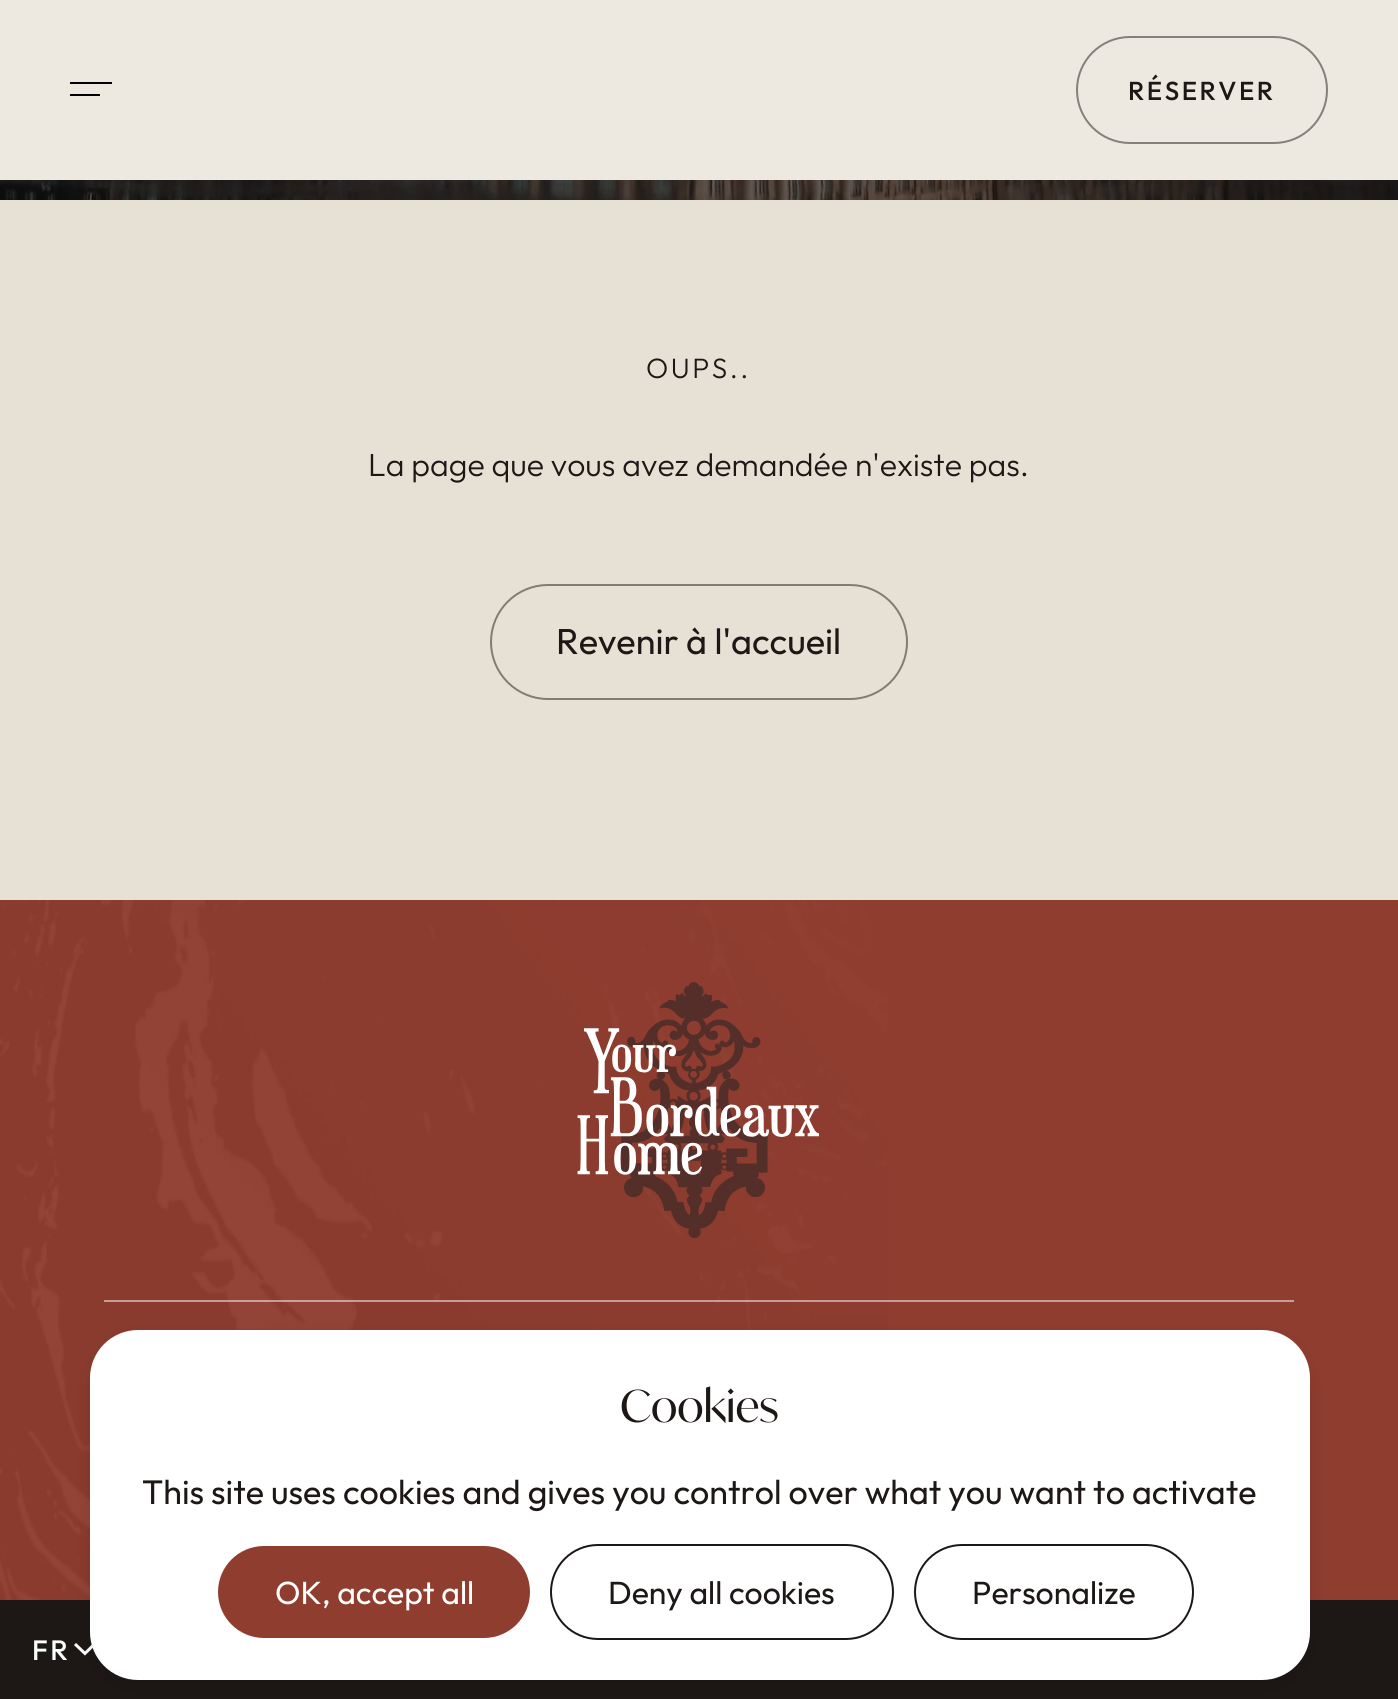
#include <cairo/cairo.h>
#include <math.h>
#include <stddef.h>

static cairo_t *cr;

static void use_color(int r, int g, int b) {
  cairo_set_source_rgb(cr, r / 255.0, g / 255.0, b / 255.0);
}

static void text(double x, double y, const char *s, const char *family, double size, int italic, int bold, int r, int g, int b) {
  cairo_select_font_face(cr, family, italic ? CAIRO_FONT_SLANT_ITALIC : CAIRO_FONT_SLANT_NORMAL,
    bold ? CAIRO_FONT_WEIGHT_BOLD : CAIRO_FONT_WEIGHT_NORMAL);
  cairo_set_font_size(cr, size);
  use_color(r, g, b);
  cairo_move_to(cr, x, y);
  cairo_show_text(cr, s);
}

static void spaced_text(double x, double y, const char *s, double letter, double word) {
  cairo_move_to(cr, x, y);
  while (*s) {
    char ch[5] = {0};
    int n = 0;
    do ch[n++] = *s++; while ((*s & 0xC0) == 0x80);
    cairo_show_text(cr, ch);
    cairo_rel_move_to(cr, letter + word * (*ch == ' '), 0);
  }
}

static void box(double x, double y, double w, double h, int r, int g, int b) {
  use_color(r, g, b);
  cairo_rectangle(cr, x, y, w, h);
  cairo_fill(cr);
}

static void round_rect(double x, double y, double w, double h, double r) {
  cairo_new_sub_path(cr);
  cairo_arc(cr, x + w - r, y + h - r, r, 0, M_PI / 2);
  cairo_arc(cr, x + r, y + h - r, r, M_PI / 2, M_PI);
  cairo_arc(cr, x + r, y + r, r, M_PI, 1.5 * M_PI);
  cairo_arc(cr, x + w - r, y + r, r, 1.5 * M_PI, 2 * M_PI);
  cairo_close_path(cr);
}

static void shadow(double x, double y, double w, double h, double r, double blur, double alpha) {
  cairo_push_group_with_content(cr, CAIRO_CONTENT_ALPHA);
  cairo_set_operator(cr, CAIRO_OPERATOR_SOURCE);
  for (int i = 15; i >= -15 && fmin(w, h) + blur * i / 3 > 0; i -= 2) {
    double e = blur * i / 6;
    cairo_set_source_rgba(cr, 0, 0, 0, alpha * erfc((i - 1) / 8.5) / 2);
    round_rect(x - e, y - e, w + 2 * e, h + 2 * e, fmax(0, fmin(r + e + blur * .6, fmin(w, h) / 2 + e)));
    cairo_fill(cr);
  }
  cairo_pattern_t *soft = cairo_pop_group(cr);
  cairo_mask(cr, soft);
  cairo_pattern_destroy(soft);
}

static void picture(const char *path, double x, double y, double w, double h) {
  cairo_surface_t *image = cairo_image_surface_create_from_png(path);
  cairo_save(cr);
  cairo_set_source_surface(cr, image, x, y);
  cairo_rectangle(cr, x, y, w, h);
  cairo_fill(cr);
  cairo_restore(cr);
  cairo_surface_destroy(image);
}

static void draw(void) {
  use_color(230, 225, 212);
  cairo_paint(cr);
  box(0, 0, 1398, 180, 237, 232, 224);
  box(70, 82, 42, 2, 0, 0, 0);
  box(70, 94, 30, 2, 0, 0, 0);
  round_rect(1077, 37, 250, 106, 53);
  use_color(133, 128, 123);
  cairo_stroke(cr);
  box(0, 180, 1398, 20, 0, 0, 0);
  picture("img_01.png", 0, 180, 1398, 20);
  round_rect(491, 585, 416, 114, 57);
  use_color(130, 124, 117);
  cairo_stroke(cr);
  box(0, 900, 1398, 700, 143, 61, 47);
  picture("img_02.png", 0, 900, 888, 700);
  picture("img_03.png", 577, 982, 242, 256);
  cairo_set_source_rgba(cr, 1, 1, 1, 0.5);
  cairo_rectangle(cr, 104, 1300, 1190, 2);
  cairo_fill(cr);
  box(0, 1600, 1398, 99, 29, 23, 22);
  cairo_new_path(cr);
  cairo_move_to(cr, 86, 1654.5);
  cairo_line_to(cr, 75, 1644);
  cairo_move_to(cr, 86, 1652.5);
  cairo_line_to(cr, 94.5, 1644);
  use_color(255, 255, 255);
  cairo_set_line_width(cr, 3);
  cairo_stroke(cr);
  use_color(0, 0, 0);
  shadow(90, 1336, 1220, 350, 48, 10, 0.1);
  use_color(255, 255, 255);
  round_rect(90, 1330, 1220, 350, 48);
  cairo_fill(cr);
  use_color(143, 61, 47);
  round_rect(218, 1546, 312, 92, 46);
  cairo_fill(cr);
  round_rect(551, 1545, 342, 94, 47);
  use_color(29, 23, 22);
  cairo_set_line_width(cr, 2);
  cairo_stroke(cr);
  round_rect(915, 1545, 278, 94, 47);
  cairo_stroke(cr);
  cairo_select_font_face(cr, "Outfit Medium", CAIRO_FONT_SLANT_NORMAL, CAIRO_FONT_WEIGHT_NORMAL);
  cairo_set_font_size(cr, 26);
  spaced_text(1128, 100, "RÉSERVER", 2.5, 0);
  cairo_select_font_face(cr, "Outfit Light", CAIRO_FONT_SLANT_NORMAL, CAIRO_FONT_WEIGHT_NORMAL);
  cairo_set_font_size(cr, 28);
  spaced_text(646, 378, "OUPS..", 2.5, 0);
  text(368, 476, "La page que vous avez demandée n'existe pas.", "Outfit Light", 32, 0, 0, 29, 23, 22);
  text(556, 654, "Revenir à l'accueil", "Outfit", 36, 0, 0, 29, 23, 22);
  text(620, 1422, "Cookies", "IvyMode", 44, 0, 0, 29, 23, 22);
  text(142, 1504, "This site uses cookies and gives you control over what you want to activate", "Outfit", 34, 0, 0, 29, 23, 22);
  text(275, 1604, "OK, accept all", "Outfit", 32, 0, 0, 255, 255, 255);
  text(608, 1604, "Deny all cookies", "Outfit", 32, 0, 0, 29, 23, 22);
  text(972, 1604, "Personalize", "Outfit", 32, 0, 0, 29, 23, 22);
  cairo_select_font_face(cr, "Outfit Medium", CAIRO_FONT_SLANT_NORMAL, CAIRO_FONT_WEIGHT_NORMAL);
  cairo_set_font_size(cr, 28);
  use_color(255, 255, 255);
  spaced_text(32, 1660, "FR", 2.5, 0);
}

int main(void) {
  cairo_surface_t *surface = cairo_image_surface_create(CAIRO_FORMAT_RGB24, 1398, 1699);
  cr = cairo_create(surface);
  cairo_font_options_t *options = cairo_font_options_create();
  cairo_font_options_set_hint_metrics(options, CAIRO_HINT_METRICS_OFF);
  cairo_font_options_set_hint_style(options, CAIRO_HINT_STYLE_NONE);
  cairo_set_font_options(cr, options);
  cairo_set_miter_limit(cr, 4);
  draw();
  cairo_surface_write_to_png(surface, "out.png");
  cairo_font_options_destroy(options);
  cairo_destroy(cr);
  cairo_surface_destroy(surface);
  return 0;
}
